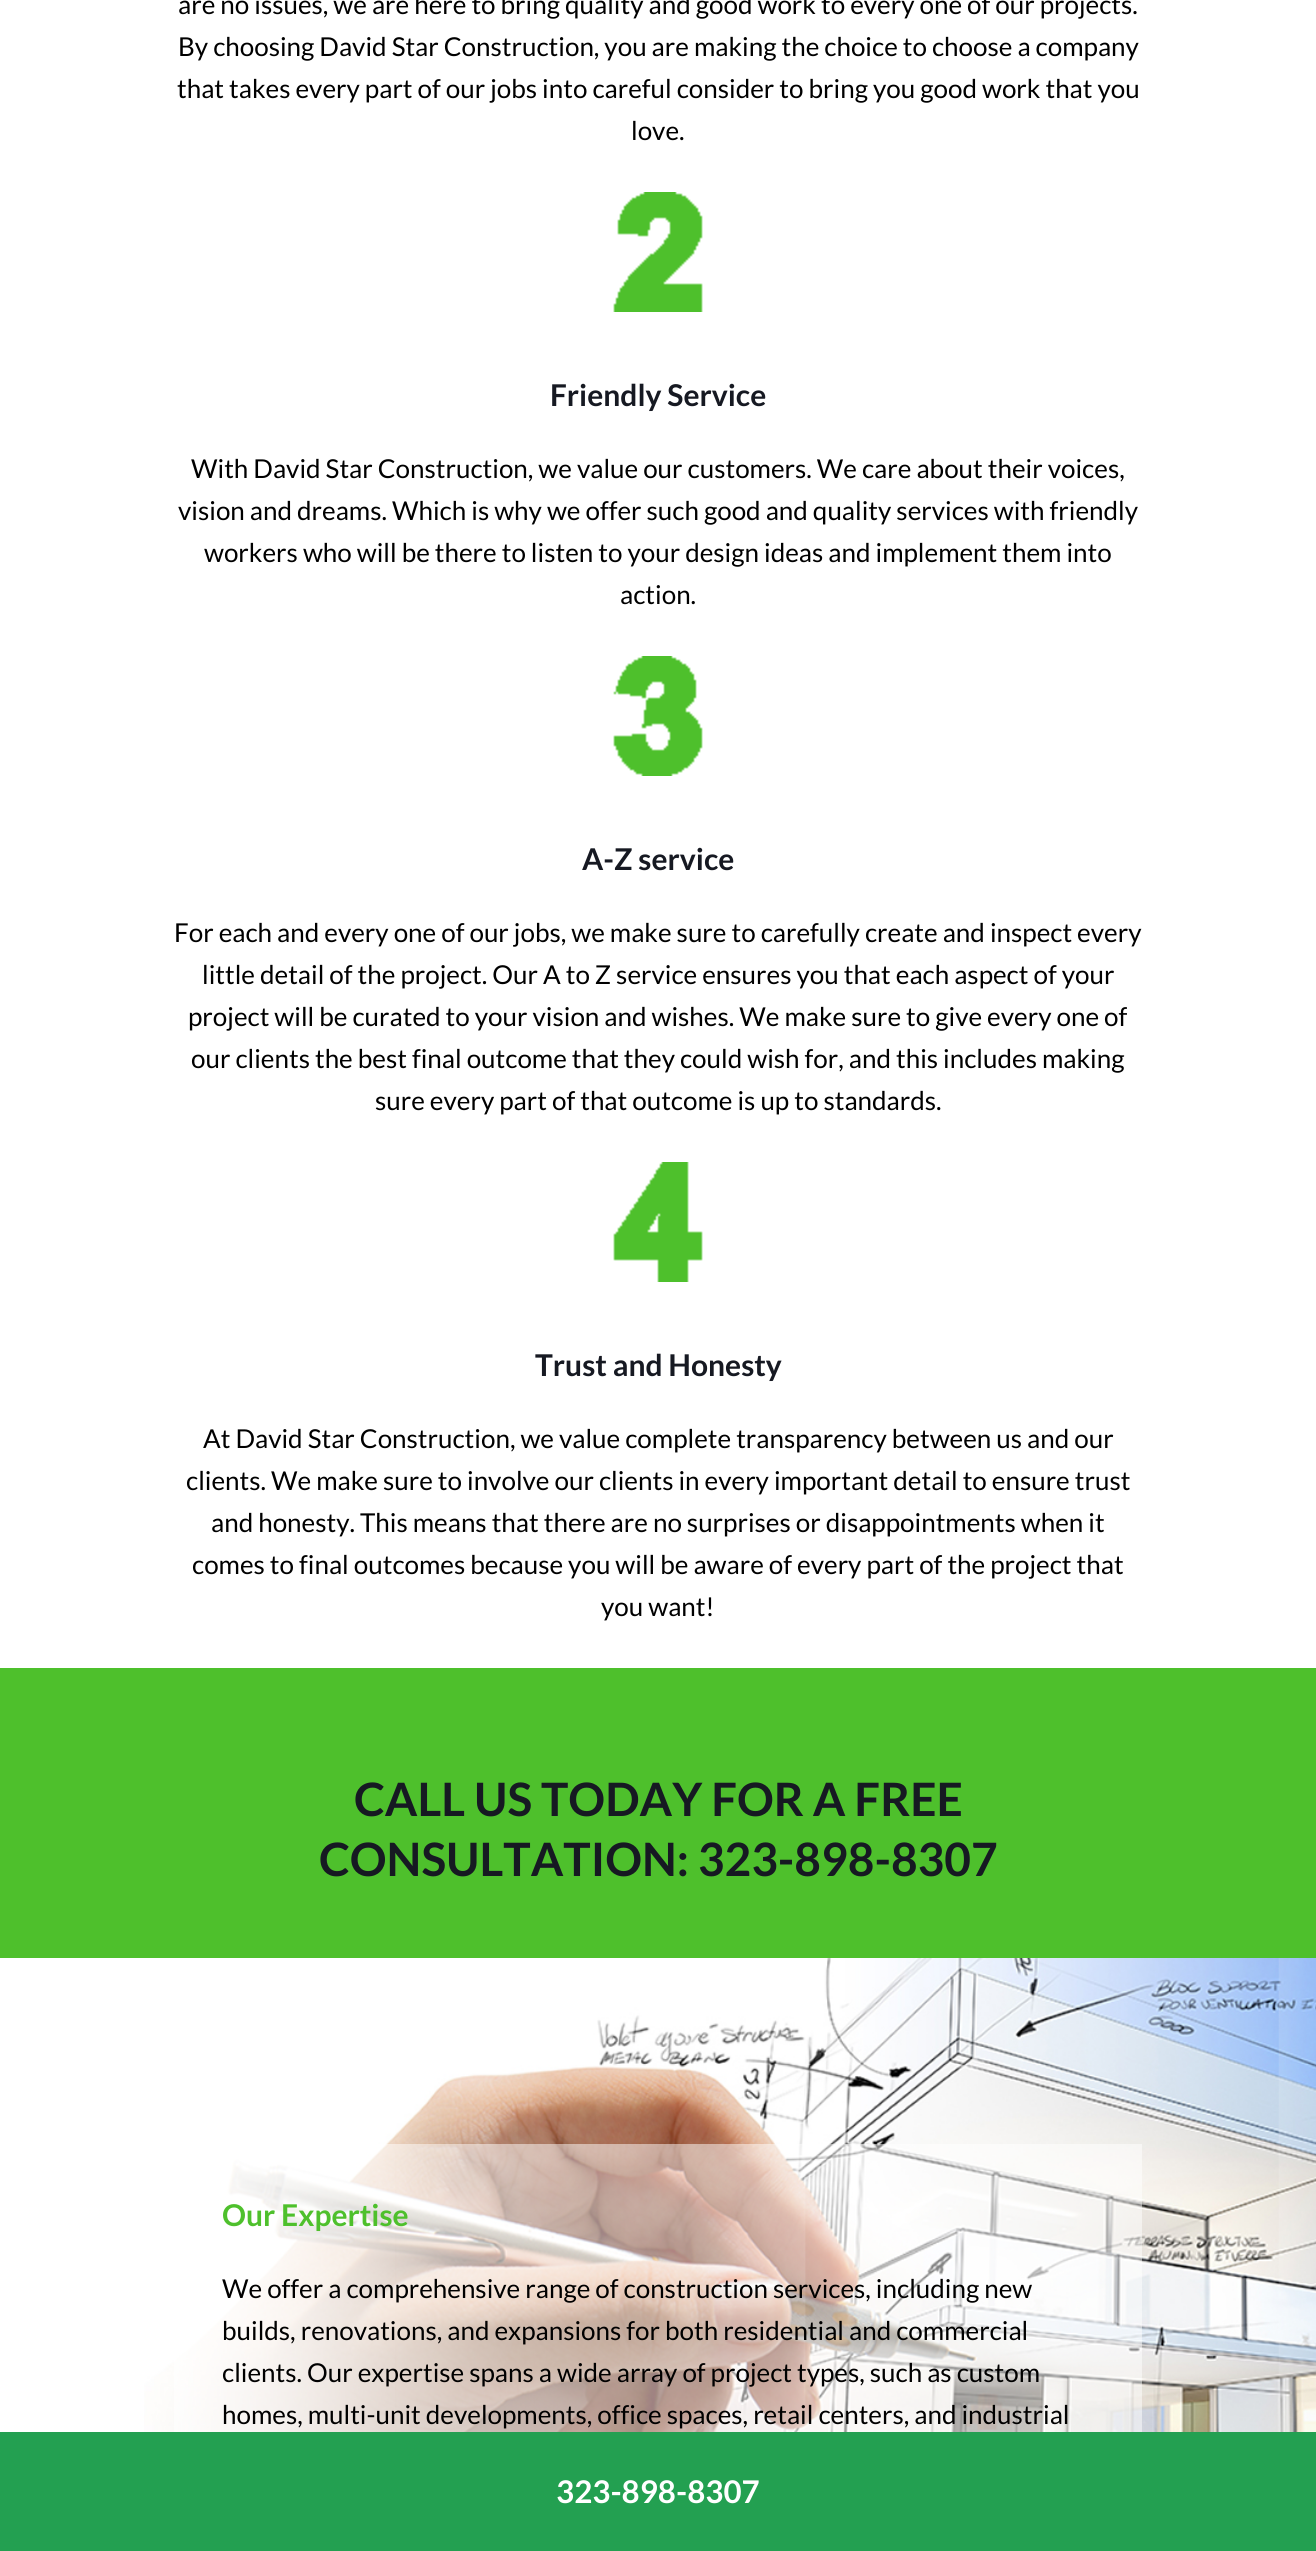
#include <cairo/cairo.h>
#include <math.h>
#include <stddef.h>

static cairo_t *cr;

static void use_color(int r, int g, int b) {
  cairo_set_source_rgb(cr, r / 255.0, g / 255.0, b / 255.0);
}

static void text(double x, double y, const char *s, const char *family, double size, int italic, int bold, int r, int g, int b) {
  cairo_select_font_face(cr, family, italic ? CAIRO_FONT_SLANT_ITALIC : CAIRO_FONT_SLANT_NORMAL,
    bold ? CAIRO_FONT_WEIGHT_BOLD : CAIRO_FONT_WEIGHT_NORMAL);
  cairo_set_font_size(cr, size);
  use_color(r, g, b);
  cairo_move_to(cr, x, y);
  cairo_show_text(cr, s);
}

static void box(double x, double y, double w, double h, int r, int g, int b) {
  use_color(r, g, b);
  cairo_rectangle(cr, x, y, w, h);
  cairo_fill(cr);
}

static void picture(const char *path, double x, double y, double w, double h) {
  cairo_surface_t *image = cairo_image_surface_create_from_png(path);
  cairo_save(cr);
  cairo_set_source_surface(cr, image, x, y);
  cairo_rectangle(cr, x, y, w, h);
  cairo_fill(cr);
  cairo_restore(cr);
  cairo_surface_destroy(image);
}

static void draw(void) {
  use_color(255, 255, 255);
  cairo_paint(cr);
  picture("img_01.png", 613, 192, 90, 120);
  picture("img_02.png", 613, 656, 90, 120);
  picture("img_03.png", 613, 1162, 90, 120);
  box(0, 1668, 1316, 290, 78, 192, 44);
  picture("img_04.png", 144, 1958, 1172, 474);
  cairo_set_source_rgba(cr, 1, 1, 1, 0.5);
  cairo_rectangle(cr, 174, 2144, 968, 288);
  cairo_fill(cr);
  box(0, 2432, 1316, 119, 35, 160, 81);
  text(178, 14, "are no issues, we are here to bring quality and good work to every one of our projects.", "Lato", 26, 0, 0, 0, 0, 0);
  text(178, 56, "By choosing David Star Construction, you are making the choice to choose a company", "Lato", 26, 0, 0, 0, 0, 0);
  text(177, 98, "that takes every part of our jobs into careful consider to bring you good work that you", "Lato", 26, 0, 0, 0, 0, 0);
  text(631, 140, "love.", "Lato", 26, 0, 0, 0, 0, 0);
  text(550, 406, "Friendly Service", "Lato", 30, 0, 1, 22, 25, 34);
  text(191, 478, "With David Star Construction, we value our customers. We care about their voices,", "Lato", 26, 0, 0, 0, 0, 0);
  text(178, 520, "vision and dreams. Which is why we offer such good and quality services with friendly", "Lato", 26, 0, 0, 0, 0, 0);
  text(204, 562, "workers who will be there to listen to your design ideas and implement them into", "Lato", 26, 0, 0, 0, 0, 0);
  text(620, 604, "action.", "Lato", 26, 0, 0, 0, 0, 0);
  text(582, 870, "A-Z service", "Lato", 30, 0, 1, 22, 25, 34);
  text(174, 942, "For each and every one of our jobs, we make sure to carefully create and inspect every", "Lato", 26, 0, 0, 0, 0, 0);
  text(202, 984, "little detail of the project. Our A to Z service ensures you that each aspect of your", "Lato", 26, 0, 0, 0, 0, 0);
  text(188, 1026, "project will be curated to your vision and wishes. We make sure to give every one of", "Lato", 26, 0, 0, 0, 0, 0);
  text(191, 1068, "our clients the best final outcome that they could wish for, and this includes making", "Lato", 26, 0, 0, 0, 0, 0);
  text(375, 1110, "sure every part of that outcome is up to standards.", "Lato", 26, 0, 0, 0, 0, 0);
  text(535, 1376, "Trust and Honesty", "Lato", 30, 0, 1, 22, 25, 34);
  text(203, 1448, "At David Star Construction, we value complete transparency between us and our", "Lato", 26, 0, 0, 0, 0, 0);
  text(186, 1490, "clients. We make sure to involve our clients in every important detail to ensure trust", "Lato", 26, 0, 0, 0, 0, 0);
  text(211, 1532, "and honesty. This means that there are no surprises or disappointments when it", "Lato", 26, 0, 0, 0, 0, 0);
  text(192, 1574, "comes to final outcomes because you will be aware of every part of the project that", "Lato", 26, 0, 0, 0, 0, 0);
  text(601, 1616, "you want!", "Lato", 26, 0, 0, 0, 0, 0);
  text(354, 1816, "CALL US TODAY FOR A FREE", "Lato", 46, 0, 1, 22, 25, 34);
  text(319, 1876, "CONSULTATION: 323-898-8307", "Lato", 46, 0, 1, 22, 25, 34);
  text(222, 2226, "Our Expertise", "Lato", 30, 0, 1, 78, 192, 44);
  text(222, 2298, "We offer a comprehensive range of construction services, including new", "Lato", 26, 0, 0, 0, 0, 0);
  text(222, 2340, "builds, renovations, and expansions for both residential and commercial", "Lato", 26, 0, 0, 0, 0, 0);
  text(222, 2382, "clients. Our expertise spans a wide array of project types, such as custom", "Lato", 26, 0, 0, 0, 0, 0);
  text(222, 2424, "homes, multi-unit developments, office spaces, retail centers, and industrial", "Lato", 26, 0, 0, 0, 0, 0);
  text(556, 2503, "323-898-8307", "Lato", 31.25, 0, 1, 255, 255, 255);
}

int main(void) {
  cairo_surface_t *surface = cairo_image_surface_create(CAIRO_FORMAT_RGB24, 1316, 2551);
  cr = cairo_create(surface);
  cairo_font_options_t *options = cairo_font_options_create();
  cairo_font_options_set_hint_metrics(options, CAIRO_HINT_METRICS_OFF);
  cairo_font_options_set_hint_style(options, CAIRO_HINT_STYLE_NONE);
  cairo_set_font_options(cr, options);
  cairo_set_miter_limit(cr, 4);
  draw();
  cairo_surface_write_to_png(surface, "out.png");
  cairo_font_options_destroy(options);
  cairo_destroy(cr);
  cairo_surface_destroy(surface);
  return 0;
}
